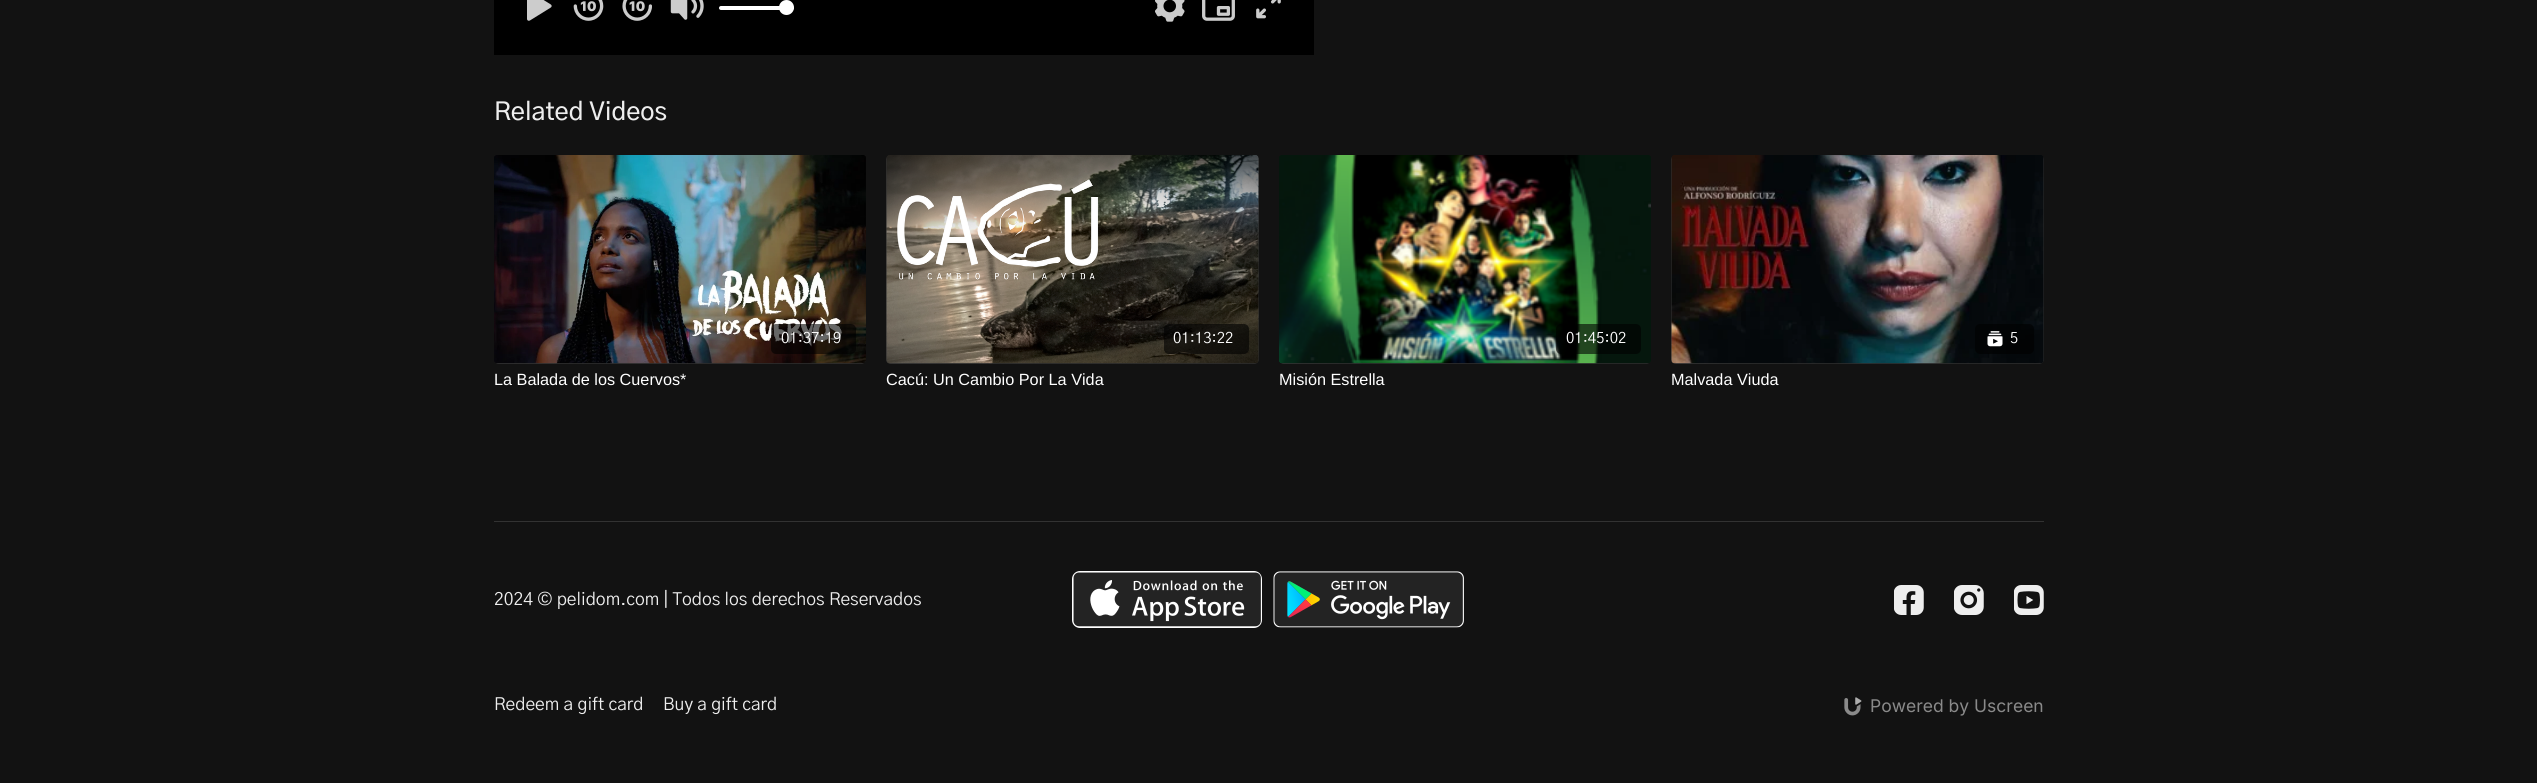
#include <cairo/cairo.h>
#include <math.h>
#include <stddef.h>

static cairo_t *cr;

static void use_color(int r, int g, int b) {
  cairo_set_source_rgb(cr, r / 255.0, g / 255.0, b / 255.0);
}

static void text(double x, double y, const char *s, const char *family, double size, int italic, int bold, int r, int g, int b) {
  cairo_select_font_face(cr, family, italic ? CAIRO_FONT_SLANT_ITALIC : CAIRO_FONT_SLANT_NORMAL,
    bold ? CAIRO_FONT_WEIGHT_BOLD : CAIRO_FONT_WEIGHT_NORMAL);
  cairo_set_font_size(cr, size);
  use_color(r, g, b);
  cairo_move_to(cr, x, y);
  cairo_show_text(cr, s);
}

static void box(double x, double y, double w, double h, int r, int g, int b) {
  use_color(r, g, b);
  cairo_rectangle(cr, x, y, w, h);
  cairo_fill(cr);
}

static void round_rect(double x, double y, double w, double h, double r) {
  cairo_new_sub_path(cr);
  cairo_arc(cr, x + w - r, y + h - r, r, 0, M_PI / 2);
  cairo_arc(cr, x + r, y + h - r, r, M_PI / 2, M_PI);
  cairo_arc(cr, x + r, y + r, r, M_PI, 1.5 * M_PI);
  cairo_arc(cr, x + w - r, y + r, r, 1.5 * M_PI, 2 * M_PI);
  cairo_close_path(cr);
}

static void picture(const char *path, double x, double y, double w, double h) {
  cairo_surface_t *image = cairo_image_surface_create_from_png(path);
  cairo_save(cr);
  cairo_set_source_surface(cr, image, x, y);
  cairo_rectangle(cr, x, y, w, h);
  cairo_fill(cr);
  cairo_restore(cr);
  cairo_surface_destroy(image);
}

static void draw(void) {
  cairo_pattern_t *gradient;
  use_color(18, 18, 18);
  cairo_paint(cr);
  box(494, 0, 820, 55, 0, 0, 0);
  picture("img_01.png", 527, 0, 25, 21);
  picture("img_02.png", 573, 0, 31, 21);
  picture("img_03.png", 622, 0, 30, 21);
  picture("img_04.png", 670, 0, 34, 20);
  use_color(255, 255, 255);
  round_rect(719, 6, 75, 4, 2);
  cairo_fill(cr);
  cairo_arc(cr, 786.5, 7.5, 7.5, 0, 2 * M_PI);
  cairo_fill(cr);
  picture("img_05.png", 1155, 0, 30, 22);
  picture("img_06.png", 1202, 0, 33, 21);
  picture("img_07.png", 1256, 0, 25, 19);
  gradient = cairo_pattern_create_linear(494, 259, 866, 259);
  cairo_pattern_add_color_stop_rgba(gradient, 0.08, 0.192, 0.192, 0.192, 1);
  cairo_pattern_add_color_stop_rgba(gradient, 0.18, 0.18, 0.18, 0.18, 1);
  cairo_pattern_add_color_stop_rgba(gradient, 0.33, 0.173, 0.173, 0.173, 1);
  cairo_set_source(cr, gradient);
  cairo_pattern_destroy(gradient);
  round_rect(494, 155, 372, 209, 5);
  cairo_fill(cr);
  picture("img_08.png", 494, 155, 372, 209);
  cairo_set_source_rgba(cr, 0, 0, 0, 0.6);
  round_rect(771, 324, 85, 30, 5);
  cairo_fill(cr);
  gradient = cairo_pattern_create_linear(886, 259, 1259, 259);
  cairo_pattern_add_color_stop_rgba(gradient, 0.08, 0.192, 0.192, 0.192, 1);
  cairo_pattern_add_color_stop_rgba(gradient, 0.18, 0.18, 0.18, 0.18, 1);
  cairo_pattern_add_color_stop_rgba(gradient, 0.33, 0.173, 0.173, 0.173, 1);
  cairo_set_source(cr, gradient);
  cairo_pattern_destroy(gradient);
  round_rect(886, 155, 373, 209, 5);
  cairo_fill(cr);
  picture("img_09.png", 886, 155, 373, 209);
  cairo_set_source_rgba(cr, 0, 0, 0, 0.6);
  round_rect(1164, 324, 85, 30, 5);
  cairo_fill(cr);
  gradient = cairo_pattern_create_linear(1279, 259, 1651, 259);
  cairo_pattern_add_color_stop_rgba(gradient, 0.08, 0.192, 0.192, 0.192, 1);
  cairo_pattern_add_color_stop_rgba(gradient, 0.18, 0.18, 0.18, 0.18, 1);
  cairo_pattern_add_color_stop_rgba(gradient, 0.33, 0.173, 0.173, 0.173, 1);
  cairo_set_source(cr, gradient);
  cairo_pattern_destroy(gradient);
  round_rect(1279, 155, 372, 209, 5);
  cairo_fill(cr);
  picture("img_10.png", 1279, 155, 372, 209);
  cairo_set_source_rgba(cr, 0, 0, 0, 0.6);
  round_rect(1556, 324, 85, 30, 5);
  cairo_fill(cr);
  gradient = cairo_pattern_create_linear(1671, 259, 2044, 259);
  cairo_pattern_add_color_stop_rgba(gradient, 0.08, 0.192, 0.192, 0.192, 1);
  cairo_pattern_add_color_stop_rgba(gradient, 0.18, 0.18, 0.18, 0.18, 1);
  cairo_pattern_add_color_stop_rgba(gradient, 0.33, 0.173, 0.173, 0.173, 1);
  cairo_set_source(cr, gradient);
  cairo_pattern_destroy(gradient);
  round_rect(1671, 155, 373, 209, 5);
  cairo_fill(cr);
  picture("img_11.png", 1671, 155, 373, 209);
  cairo_set_source_rgba(cr, 0, 0, 0, 0.6);
  round_rect(1975, 324, 59, 30, 5);
  cairo_fill(cr);
  picture("img_12.png", 1987, 331, 16, 16);
  box(494, 521, 1550, 1, 50, 50, 50);
  picture("img_13.png", 1072, 571, 190, 57);
  picture("img_14.png", 1273, 571, 191, 57);
  picture("img_15.png", 1894, 585, 30, 30);
  picture("img_16.png", 1954, 585, 30, 30);
  picture("img_17.png", 2014, 585, 30, 30);
  picture("img_18.png", 1844, 697, 18, 19);
  text(494, 120, "Related Videos", "Gothic A1 Medium", 25, 0, 0, 238, 238, 238);
  text(781, 343, "01:37:19", "Gothic A1", 15, 0, 0, 255, 255, 255);
  text(494, 385, "La Balada de los Cuervos*", "Liberation Sans", 16.25, 0, 0, 255, 255, 255);
  text(1173, 343, "01:13:22", "Gothic A1", 15, 0, 0, 255, 255, 255);
  text(886, 385, "Cacú: Un Cambio Por La Vida", "Liberation Sans", 16.25, 0, 0, 255, 255, 255);
  text(1566, 343, "01:45:02", "Gothic A1", 15, 0, 0, 255, 255, 255);
  text(1279, 385, "Misión Estrella", "Liberation Sans", 16.25, 0, 0, 255, 255, 255);
  text(2010, 343, "5", "Gothic A1", 15, 0, 0, 255, 255, 255);
  text(1671, 385, "Malvada Viuda", "Liberation Sans", 16.25, 0, 0, 255, 255, 255);
  text(494, 605, "2024 © pelidom.com | Todos los derechos Reservados", "Gothic A1", 17.5, 0, 0, 238, 238, 238);
  text(494, 710, "Redeem a gift card", "Gothic A1", 17.5, 0, 0, 238, 238, 238);
  text(663, 710, "Buy a gift card", "Gothic A1", 17.5, 0, 0, 238, 238, 238);
  text(1870, 712, "Powered by Uscreen", "Inter", 17.5, 0, 0, 138, 138, 138);
}

int main(void) {
  cairo_surface_t *surface = cairo_image_surface_create(CAIRO_FORMAT_RGB24, 2537, 783);
  cr = cairo_create(surface);
  cairo_font_options_t *options = cairo_font_options_create();
  cairo_font_options_set_hint_metrics(options, CAIRO_HINT_METRICS_OFF);
  cairo_font_options_set_hint_style(options, CAIRO_HINT_STYLE_NONE);
  cairo_set_font_options(cr, options);
  cairo_set_miter_limit(cr, 4);
  draw();
  cairo_surface_write_to_png(surface, "out.png");
  cairo_font_options_destroy(options);
  cairo_destroy(cr);
  cairo_surface_destroy(surface);
  return 0;
}
